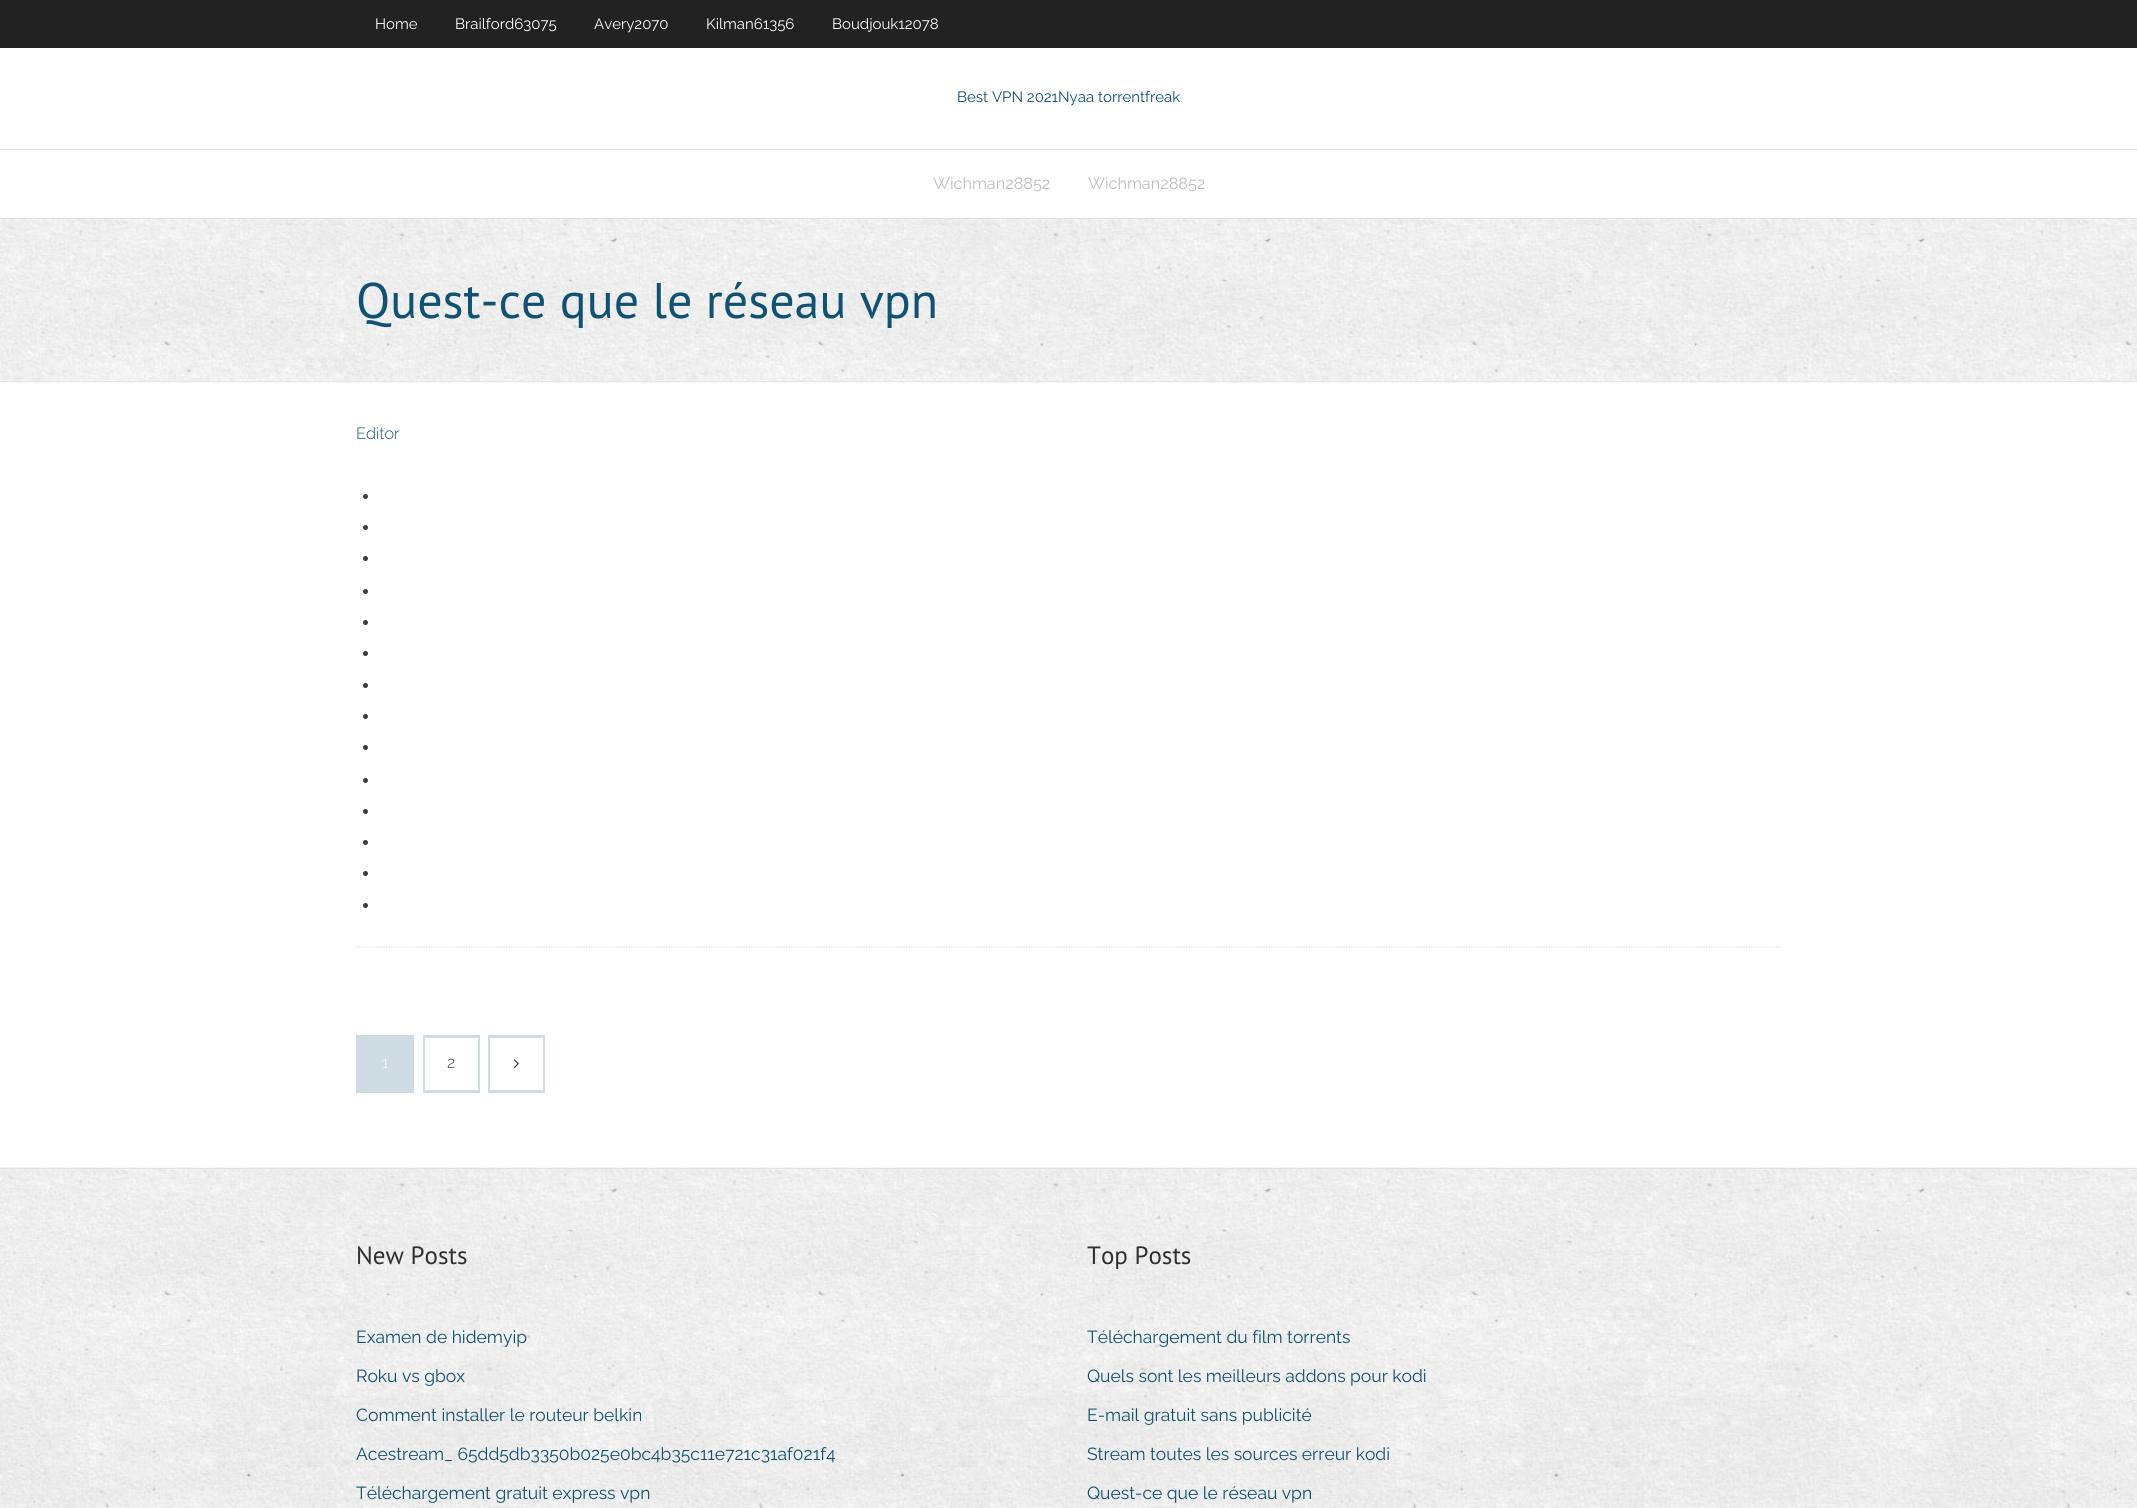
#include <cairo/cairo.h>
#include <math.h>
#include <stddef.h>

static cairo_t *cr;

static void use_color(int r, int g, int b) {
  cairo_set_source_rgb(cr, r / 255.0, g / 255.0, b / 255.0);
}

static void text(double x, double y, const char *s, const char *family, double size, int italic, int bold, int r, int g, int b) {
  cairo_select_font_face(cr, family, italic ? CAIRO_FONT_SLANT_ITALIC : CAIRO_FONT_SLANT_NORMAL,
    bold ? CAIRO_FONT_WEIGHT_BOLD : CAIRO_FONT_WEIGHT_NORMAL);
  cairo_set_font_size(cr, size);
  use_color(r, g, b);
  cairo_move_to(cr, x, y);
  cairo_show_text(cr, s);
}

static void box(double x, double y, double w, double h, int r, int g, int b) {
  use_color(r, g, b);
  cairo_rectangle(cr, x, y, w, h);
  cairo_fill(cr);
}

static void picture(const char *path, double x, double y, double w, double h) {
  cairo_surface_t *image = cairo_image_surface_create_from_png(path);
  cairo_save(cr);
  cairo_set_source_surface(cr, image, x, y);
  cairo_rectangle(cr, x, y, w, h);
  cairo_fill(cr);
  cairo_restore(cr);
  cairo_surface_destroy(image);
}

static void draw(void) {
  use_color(255, 255, 255);
  cairo_paint(cr);
  box(0, 0, 2137, 48, 34, 34, 34);
  box(0, 149, 2137, 1, 225, 225, 225);
  box(0, 218, 2137, 1, 225, 225, 225);
  picture("img_01.png", 0, 219, 2137, 164);
  box(0, 381, 2137, 1, 229, 229, 229);
  cairo_new_path(cr);
  cairo_move_to(cr, 356, 947);
  cairo_line_to(cr, 1781, 947);
  use_color(221, 221, 221);
  cairo_set_line_width(cr, 1.2);
  cairo_set_dash(cr, (double[]){1.25, 1.25}, 2, 0);
  cairo_stroke(cr);
  use_color(61, 61, 61);
  cairo_arc(cr, 365.5, 496.5, 2.5, 0, 2 * M_PI);
  cairo_fill(cr);
  cairo_arc(cr, 365.5, 527.5, 2.5, 0, 2 * M_PI);
  cairo_fill(cr);
  cairo_arc(cr, 365.5, 558.5, 2.5, 0, 2 * M_PI);
  cairo_fill(cr);
  cairo_arc(cr, 365.5, 591.5, 2.5, 0, 2 * M_PI);
  cairo_fill(cr);
  cairo_arc(cr, 365.5, 622.5, 2.5, 0, 2 * M_PI);
  cairo_fill(cr);
  cairo_arc(cr, 365.5, 653.5, 2.5, 0, 2 * M_PI);
  cairo_fill(cr);
  cairo_arc(cr, 365.5, 685.5, 2.5, 0, 2 * M_PI);
  cairo_fill(cr);
  cairo_arc(cr, 365.5, 716.5, 2.5, 0, 2 * M_PI);
  cairo_fill(cr);
  cairo_arc(cr, 365.5, 747.5, 2.5, 0, 2 * M_PI);
  cairo_fill(cr);
  cairo_arc(cr, 365.5, 780.5, 2.5, 0, 2 * M_PI);
  cairo_fill(cr);
  cairo_arc(cr, 365.5, 811.5, 2.5, 0, 2 * M_PI);
  cairo_fill(cr);
  cairo_arc(cr, 365.5, 842.5, 2.5, 0, 2 * M_PI);
  cairo_fill(cr);
  cairo_arc(cr, 365.5, 873.5, 2.5, 0, 2 * M_PI);
  cairo_fill(cr);
  cairo_arc(cr, 365.5, 905.5, 2.5, 0, 2 * M_PI);
  cairo_fill(cr);
  cairo_rectangle(cr, 357.5, 1036.5, 55, 55);
  use_color(207, 220, 227);
  cairo_set_line_width(cr, 3);
  cairo_set_dash(cr, NULL, 0, 0);
  cairo_stroke(cr);
  box(359, 1038, 52, 52, 207, 220, 227);
  cairo_rectangle(cr, 424.5, 1036.5, 54, 55);
  cairo_stroke(cr);
  box(425, 1038, 53, 52, 255, 255, 255);
  cairo_rectangle(cr, 489.5, 1036.5, 54, 55);
  use_color(207, 220, 227);
  cairo_stroke(cr);
  box(490, 1038, 53, 52, 255, 255, 255);
  picture("img_02.png", 513, 1059, 6, 9);
  picture("img_03.png", 0, 1167, 2137, 341);
  box(0, 1168, 2137, 1, 225, 225, 225);
  text(375, 29, "Home", "Raleway", 15, 0, 0, 255, 255, 255);
  text(455, 29, "Brailford63075", "Raleway", 15, 0, 0, 255, 255, 255);
  text(594, 29, "Avery2070", "Raleway", 15, 0, 0, 255, 255, 255);
  text(706, 29, "Kilman61356", "Raleway", 15, 0, 0, 255, 255, 255);
  text(832, 29, "Boudjouk12078", "Raleway", 15, 0, 0, 255, 255, 255);
  text(957, 102, "Best VPN 2021Nyaa torrentfreak", "Raleway", 15, 0, 0, 17, 81, 114);
  text(933, 189, "Wichman28852", "Raleway", 16.25, 0, 0, 190, 190, 190);
  text(1088, 189, "Wichman28852", "Raleway", 16.25, 0, 0, 190, 190, 190);
  text(356, 318, "Quest-ce que le réseau vpn", "PT Sans", 50, 0, 0, 17, 81, 114);
  text(356, 439, "Editor", "Raleway Light", 16.25, 0, 0, 17, 81, 114);
  text(382, 1068, "1", "Raleway Light", 16, 0, 0, 255, 255, 255);
  text(447, 1068, "2", "Raleway Light", 16, 0, 0, 61, 61, 61);
  text(356, 1264, "New Posts", "PT Sans", 25, 0, 0, 47, 47, 47);
  text(356, 1343, "Examen de hidemyip", "Raleway", 17.5, 0, 0, 17, 81, 114);
  text(356, 1382, "Roku vs gbox", "Raleway", 17.5, 0, 0, 17, 81, 114);
  text(356, 1421, "Comment installer le routeur belkin", "Raleway", 17.5, 0, 0, 17, 81, 114);
  text(356, 1460, "Acestream_ 65dd5db3350b025e0bc4b35c11e721c31af021f4", "Raleway", 17.5, 0, 0, 17, 81, 114);
  text(356, 1499, "Téléchargement gratuit express vpn", "Raleway", 17.5, 0, 0, 17, 81, 114);
  text(1087, 1264, "Top Posts", "PT Sans", 25, 0, 0, 47, 47, 47);
  text(1087, 1343, "Téléchargement du film torrents", "Raleway", 17.5, 0, 0, 17, 81, 114);
  text(1087, 1382, "Quels sont les meilleurs addons pour kodi", "Raleway", 17.5, 0, 0, 17, 81, 114);
  text(1087, 1421, "E-mail gratuit sans publicité", "Raleway", 17.5, 0, 0, 17, 81, 114);
  text(1087, 1460, "Stream toutes les sources erreur kodi", "Raleway", 17.5, 0, 0, 17, 81, 114);
  text(1087, 1499, "Quest-ce que le réseau vpn", "Raleway", 17.5, 0, 0, 17, 81, 114);
}

int main(void) {
  cairo_surface_t *surface = cairo_image_surface_create(CAIRO_FORMAT_RGB24, 2137, 1508);
  cr = cairo_create(surface);
  cairo_font_options_t *options = cairo_font_options_create();
  cairo_font_options_set_hint_metrics(options, CAIRO_HINT_METRICS_OFF);
  cairo_font_options_set_hint_style(options, CAIRO_HINT_STYLE_NONE);
  cairo_set_font_options(cr, options);
  cairo_set_miter_limit(cr, 4);
  draw();
  cairo_surface_write_to_png(surface, "out.png");
  cairo_font_options_destroy(options);
  cairo_destroy(cr);
  cairo_surface_destroy(surface);
  return 0;
}
